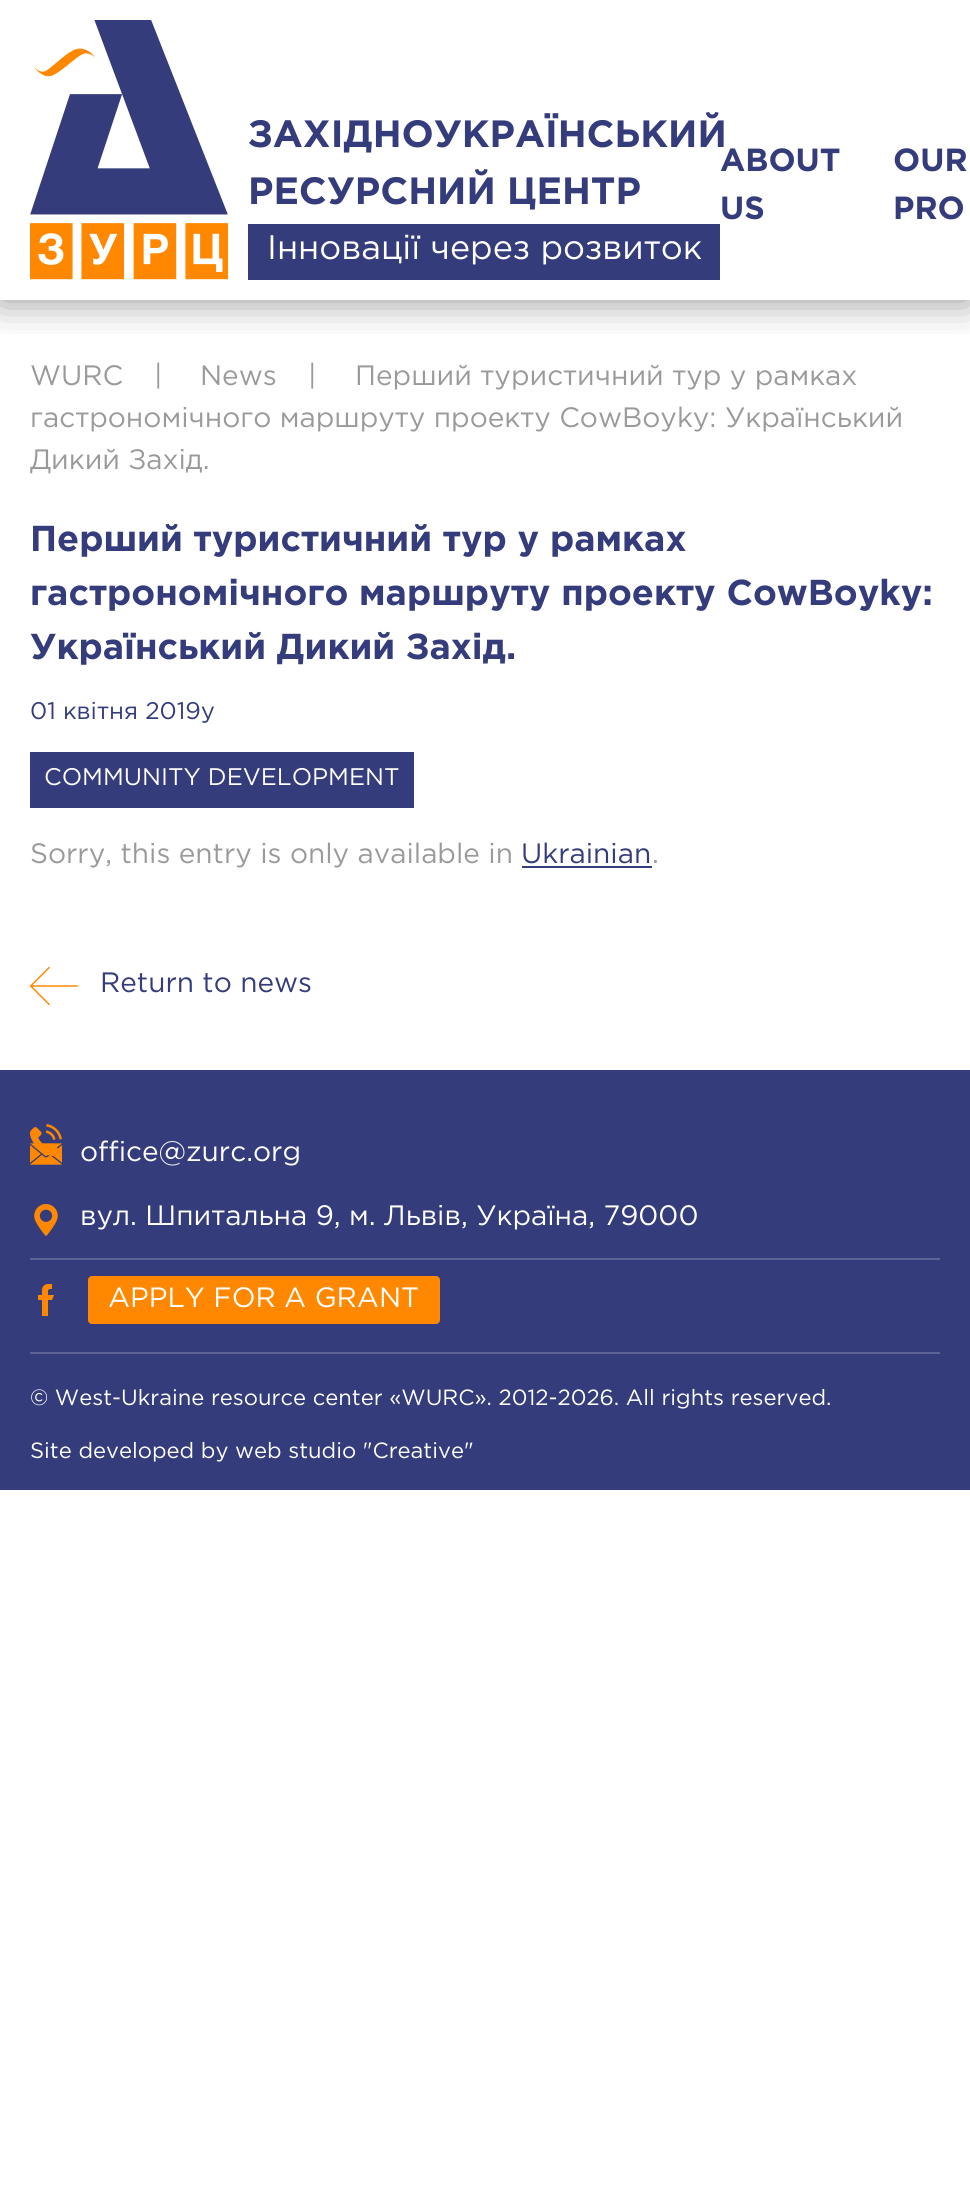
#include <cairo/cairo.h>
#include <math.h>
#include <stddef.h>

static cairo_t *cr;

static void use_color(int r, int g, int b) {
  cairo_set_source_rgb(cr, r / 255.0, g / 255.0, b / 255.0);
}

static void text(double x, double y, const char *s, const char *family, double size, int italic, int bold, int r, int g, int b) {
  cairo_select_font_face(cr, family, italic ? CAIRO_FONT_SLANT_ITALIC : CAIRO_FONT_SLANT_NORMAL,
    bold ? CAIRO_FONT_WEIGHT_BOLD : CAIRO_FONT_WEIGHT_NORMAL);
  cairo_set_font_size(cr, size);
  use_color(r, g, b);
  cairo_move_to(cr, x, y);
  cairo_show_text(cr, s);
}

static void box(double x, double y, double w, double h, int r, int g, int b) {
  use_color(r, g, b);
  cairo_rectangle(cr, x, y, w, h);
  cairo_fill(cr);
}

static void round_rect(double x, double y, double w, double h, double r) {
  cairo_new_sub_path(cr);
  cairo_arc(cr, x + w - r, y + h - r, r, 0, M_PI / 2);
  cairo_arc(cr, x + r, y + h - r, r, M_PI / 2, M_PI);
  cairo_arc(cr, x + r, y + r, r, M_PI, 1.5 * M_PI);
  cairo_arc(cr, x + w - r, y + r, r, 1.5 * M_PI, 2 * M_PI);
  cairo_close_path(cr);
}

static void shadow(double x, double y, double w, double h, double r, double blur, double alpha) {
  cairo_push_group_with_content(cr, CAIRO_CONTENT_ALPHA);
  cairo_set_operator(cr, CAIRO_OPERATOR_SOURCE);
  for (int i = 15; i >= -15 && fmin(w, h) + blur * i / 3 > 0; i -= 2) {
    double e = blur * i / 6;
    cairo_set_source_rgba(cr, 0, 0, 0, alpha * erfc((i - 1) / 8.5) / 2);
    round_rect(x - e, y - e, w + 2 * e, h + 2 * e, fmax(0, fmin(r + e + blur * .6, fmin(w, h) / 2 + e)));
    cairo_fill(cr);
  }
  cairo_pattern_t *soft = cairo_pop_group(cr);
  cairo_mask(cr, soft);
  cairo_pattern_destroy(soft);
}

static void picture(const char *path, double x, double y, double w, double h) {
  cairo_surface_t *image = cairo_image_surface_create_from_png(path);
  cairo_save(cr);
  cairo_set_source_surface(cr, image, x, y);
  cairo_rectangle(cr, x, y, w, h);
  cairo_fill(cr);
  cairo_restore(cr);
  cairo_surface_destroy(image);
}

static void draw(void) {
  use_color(255, 255, 255);
  cairo_paint(cr);
  cairo_save(cr);
  cairo_rectangle(cr, 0, 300, 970, 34);
  cairo_clip(cr);
  use_color(0, 0, 0);
  shadow(0, 0, 970, 300, 0, 20, 0.45);
  cairo_restore(cr);
  picture("img_01.png", 30, 20, 198, 260);
  box(248, 224, 472, 56, 53, 60, 124);
  box(30, 752, 384, 56, 53, 60, 124);
  box(522, 866, 130, 2, 53, 60, 124);
  picture("img_02.png", 30, 966, 48, 40);
  box(0, 1070, 970, 420, 53, 60, 124);
  picture("img_04.png", 30, 1143, 32, 22);
  picture("img_03.png", 30, 1124, 32, 32);
  box(30, 1258, 910, 2, 93, 99, 150);
  picture("img_05.png", 34, 1204, 24, 32);
  picture("img_06.png", 38, 1284, 16, 32);
  use_color(255, 136, 0);
  round_rect(88, 1276, 352, 48, 4);
  cairo_fill(cr);
  box(30, 1352, 910, 2, 93, 99, 150);
  text(248, 147, "ЗАХІДНОУКРАЇНСЬКИЙ", "Gotham", 38, 0, 1, 53, 60, 124);
  text(248, 204, "РЕСУРСНИЙ ЦЕНТР", "Gotham", 38, 0, 1, 53, 60, 124);
  text(267, 259, "Інновації через розвиток", "Gotham", 34, 0, 0, 255, 255, 255);
  text(720, 171, "ABOUT", "Gotham", 32, 0, 1, 53, 60, 124);
  text(720, 219, "US", "Gotham", 32, 0, 1, 53, 60, 124);
  text(893, 171, "OUR", "Gotham", 32, 0, 1, 53, 60, 124);
  text(893, 219, "PRO", "Gotham", 32, 0, 1, 53, 60, 124);
  text(30, 385, "WURC", "Gotham", 28, 0, 0, 154, 154, 155);
  text(154, 385, "|", "Gotham", 28, 0, 0, 154, 154, 155);
  text(200, 385, "News", "Gotham", 28, 0, 0, 154, 154, 155);
  text(308, 385, "|", "Gotham", 28, 0, 0, 154, 154, 155);
  text(355, 385, "Перший туристичний тур у рамках", "Gotham", 28, 0, 0, 154, 154, 155);
  text(30, 427, "гастрономічного маршруту проекту CowBoyky: Український", "Gotham", 28, 0, 0, 154, 154, 155);
  text(30, 469, "Дикий Захід.", "Gotham", 28, 0, 0, 154, 154, 155);
  text(30, 551, "Перший туристичний тур у рамках", "Gotham", 36, 0, 1, 53, 60, 124);
  text(30, 605, "гастрономічного маршруту проекту CowBoyky:", "Gotham", 36, 0, 1, 53, 60, 124);
  text(30, 659, "Український Дикий Захід.", "Gotham", 36, 0, 1, 53, 60, 124);
  text(30, 719, "01 квітня 2019y", "Gotham", 24, 0, 0, 53, 60, 124);
  text(44, 785, "COMMUNITY DEVELOPMENT", "Gotham", 24, 0, 0, 255, 255, 255);
  text(30, 863, "Sorry, this entry is only available in", "Gotham", 28, 0, 0, 154, 154, 155);
  text(521, 863, "Ukrainian", "Gotham", 28, 0, 0, 53, 60, 124);
  text(652, 863, ".", "Gotham", 28, 0, 0, 154, 154, 155);
  text(100, 992, "Return to news", "Gotham", 28, 0, 0, 53, 60, 124);
  text(80, 1161, "office@zurc.org", "Gotham", 28, 0, 0, 255, 255, 255);
  text(80, 1225, "вул. Шпитальна 9, м. Львів, Україна, 79000", "Gotham", 28, 0, 0, 255, 255, 255);
  text(108, 1307, "APPLY FOR A GRANT", "Gotham", 28, 0, 0, 255, 255, 255);
  text(30, 1405, "© West-Ukraine resource center «WURC». 2012-2026. All rights reserved.", "Gotham", 22, 0, 0, 255, 255, 255);
  text(30, 1458, "Site developed by web studio \"Creative\"", "Gotham", 22, 0, 0, 255, 255, 255);
}

int main(void) {
  cairo_surface_t *surface = cairo_image_surface_create(CAIRO_FORMAT_RGB24, 970, 2195);
  cr = cairo_create(surface);
  cairo_font_options_t *options = cairo_font_options_create();
  cairo_font_options_set_hint_metrics(options, CAIRO_HINT_METRICS_OFF);
  cairo_font_options_set_hint_style(options, CAIRO_HINT_STYLE_NONE);
  cairo_set_font_options(cr, options);
  cairo_set_miter_limit(cr, 4);
  draw();
  cairo_surface_write_to_png(surface, "out.png");
  cairo_font_options_destroy(options);
  cairo_destroy(cr);
  cairo_surface_destroy(surface);
  return 0;
}
